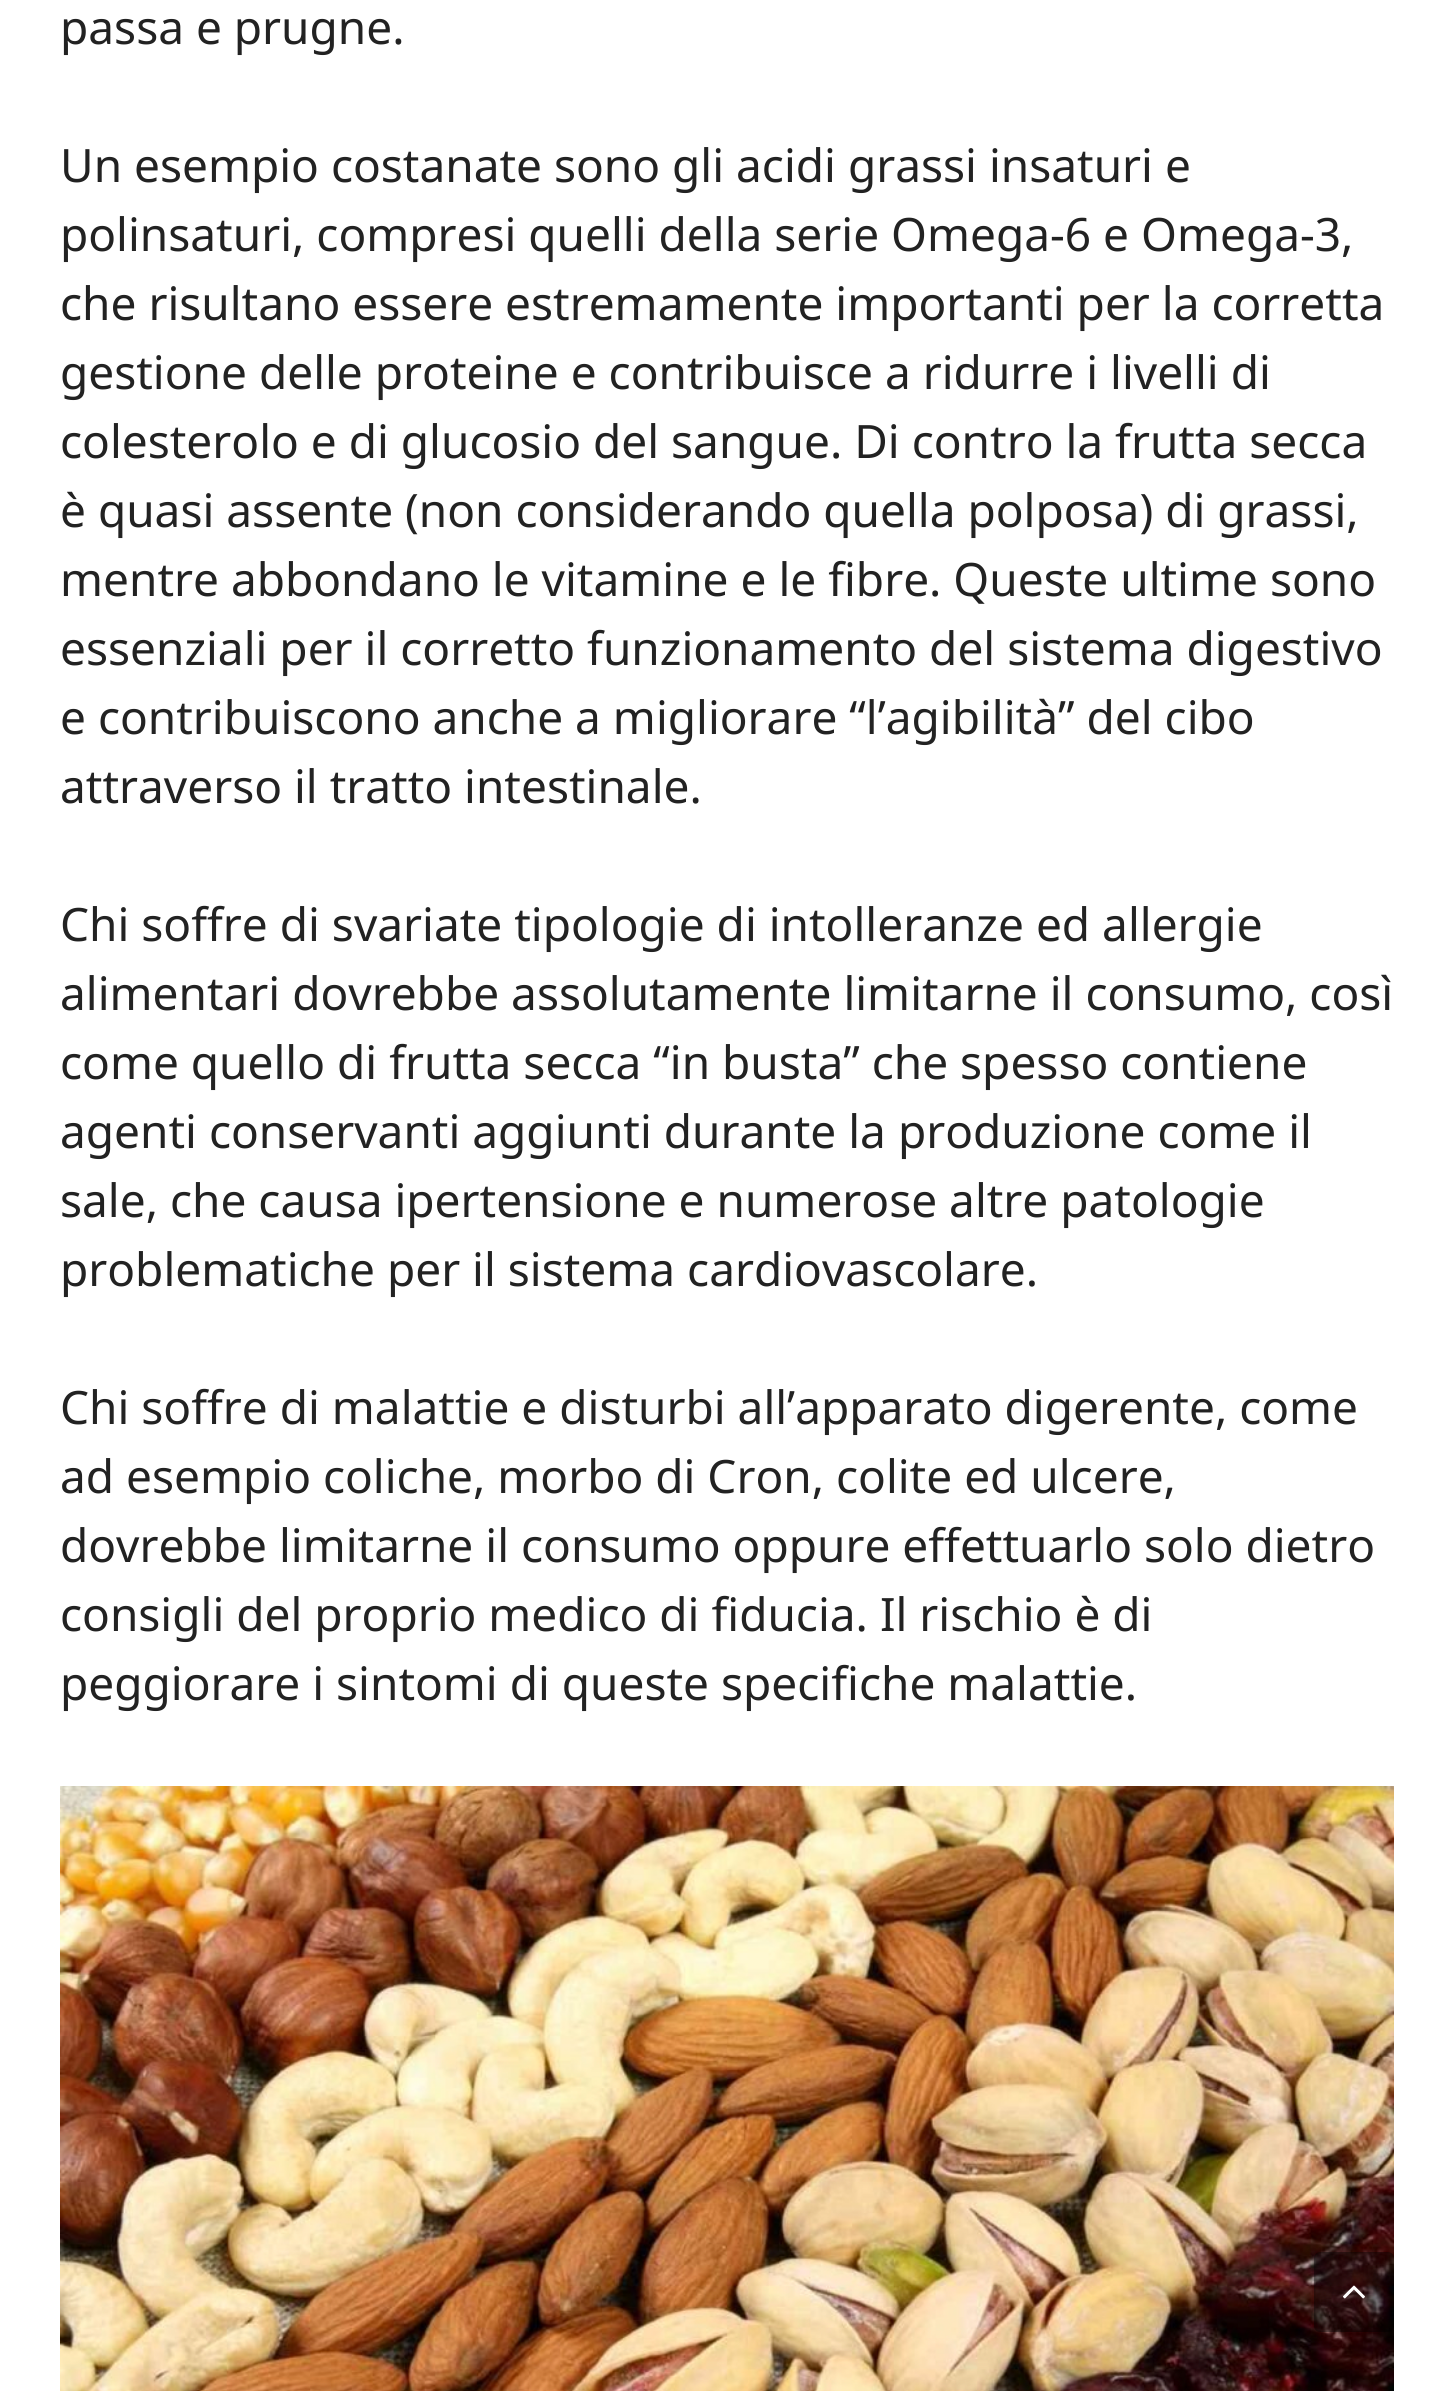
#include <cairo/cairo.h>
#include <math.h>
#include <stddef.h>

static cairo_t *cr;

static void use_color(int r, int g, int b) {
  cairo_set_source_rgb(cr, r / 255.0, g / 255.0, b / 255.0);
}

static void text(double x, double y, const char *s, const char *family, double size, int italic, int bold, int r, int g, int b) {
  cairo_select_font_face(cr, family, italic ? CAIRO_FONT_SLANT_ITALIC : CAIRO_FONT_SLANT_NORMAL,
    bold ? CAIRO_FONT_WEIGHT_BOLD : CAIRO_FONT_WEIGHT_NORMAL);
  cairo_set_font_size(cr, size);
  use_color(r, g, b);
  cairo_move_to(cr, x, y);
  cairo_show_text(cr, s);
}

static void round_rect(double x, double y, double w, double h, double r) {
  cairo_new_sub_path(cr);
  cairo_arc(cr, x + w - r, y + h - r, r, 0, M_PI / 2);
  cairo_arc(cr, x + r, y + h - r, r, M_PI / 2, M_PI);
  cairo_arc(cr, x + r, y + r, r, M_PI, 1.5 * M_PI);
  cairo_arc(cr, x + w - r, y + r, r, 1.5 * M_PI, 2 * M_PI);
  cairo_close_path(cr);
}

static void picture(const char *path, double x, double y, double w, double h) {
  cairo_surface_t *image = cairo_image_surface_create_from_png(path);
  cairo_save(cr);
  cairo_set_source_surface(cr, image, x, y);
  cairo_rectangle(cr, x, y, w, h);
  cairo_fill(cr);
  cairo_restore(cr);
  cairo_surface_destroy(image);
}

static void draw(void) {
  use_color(255, 255, 255);
  cairo_paint(cr);
  picture("img_01.png", 60, 1786, 1334, 605);
  cairo_set_source_rgba(cr, 0, 0, 0, 0.4);
  round_rect(1314, 2252, 80, 80, 6);
  cairo_fill(cr);
  picture("img_02.png", 1343, 2285, 22, 14);
  text(60, 44, "passa e prugne.", "Noto Sans", 46, 0, 0, 34, 34, 34);
  text(60, 182, "Un esempio costanate sono gli acidi grassi insaturi e", "Noto Sans", 46, 0, 0, 34, 34, 34);
  text(60, 251, "polinsaturi, compresi quelli della serie Omega-6 e Omega-3,", "Noto Sans", 46, 0, 0, 34, 34, 34);
  text(60, 320, "che risultano essere estremamente importanti per la corretta", "Noto Sans", 46, 0, 0, 34, 34, 34);
  text(60, 389, "gestione delle proteine e contribuisce a ridurre i livelli di", "Noto Sans", 46, 0, 0, 34, 34, 34);
  text(60, 458, "colesterolo e di glucosio del sangue. Di contro la frutta secca", "Noto Sans", 46, 0, 0, 34, 34, 34);
  text(60, 527, "è quasi assente (non considerando quella polposa) di grassi,", "Noto Sans", 46, 0, 0, 34, 34, 34);
  text(60, 596, "mentre abbondano le vitamine e le fibre. Queste ultime sono", "Noto Sans", 46, 0, 0, 34, 34, 34);
  text(60, 665, "essenziali per il corretto funzionamento del sistema digestivo", "Noto Sans", 46, 0, 0, 34, 34, 34);
  text(60, 734, "e contribuiscono anche a migliorare “l’agibilità” del cibo", "Noto Sans", 46, 0, 0, 34, 34, 34);
  text(60, 803, "attraverso il tratto intestinale.", "Noto Sans", 46, 0, 0, 34, 34, 34);
  text(60, 941, "Chi soffre di svariate tipologie di intolleranze ed allergie", "Noto Sans", 46, 0, 0, 34, 34, 34);
  text(60, 1010, "alimentari dovrebbe assolutamente limitarne il consumo, così", "Noto Sans", 46, 0, 0, 34, 34, 34);
  text(60, 1079, "come quello di frutta secca “in busta” che spesso contiene", "Noto Sans", 46, 0, 0, 34, 34, 34);
  text(60, 1148, "agenti conservanti aggiunti durante la produzione come il", "Noto Sans", 46, 0, 0, 34, 34, 34);
  text(60, 1217, "sale, che causa ipertensione e numerose altre patologie", "Noto Sans", 46, 0, 0, 34, 34, 34);
  text(60, 1286, "problematiche per il sistema cardiovascolare.", "Noto Sans", 46, 0, 0, 34, 34, 34);
  text(60, 1424, "Chi soffre di malattie e disturbi all’apparato digerente, come", "Noto Sans", 46, 0, 0, 34, 34, 34);
  text(60, 1493, "ad esempio coliche, morbo di Cron, colite ed ulcere,", "Noto Sans", 46, 0, 0, 34, 34, 34);
  text(60, 1562, "dovrebbe limitarne il consumo oppure effettuarlo solo dietro", "Noto Sans", 46, 0, 0, 34, 34, 34);
  text(60, 1631, "consigli del proprio medico di fiducia. Il rischio è di", "Noto Sans", 46, 0, 0, 34, 34, 34);
  text(60, 1700, "peggiorare i sintomi di queste specifiche malattie.", "Noto Sans", 46, 0, 0, 34, 34, 34);
}

int main(void) {
  cairo_surface_t *surface = cairo_image_surface_create(CAIRO_FORMAT_RGB24, 1453, 2391);
  cr = cairo_create(surface);
  cairo_font_options_t *options = cairo_font_options_create();
  cairo_font_options_set_hint_metrics(options, CAIRO_HINT_METRICS_OFF);
  cairo_font_options_set_hint_style(options, CAIRO_HINT_STYLE_NONE);
  cairo_set_font_options(cr, options);
  cairo_set_miter_limit(cr, 4);
  draw();
  cairo_surface_write_to_png(surface, "out.png");
  cairo_font_options_destroy(options);
  cairo_destroy(cr);
  cairo_surface_destroy(surface);
  return 0;
}
